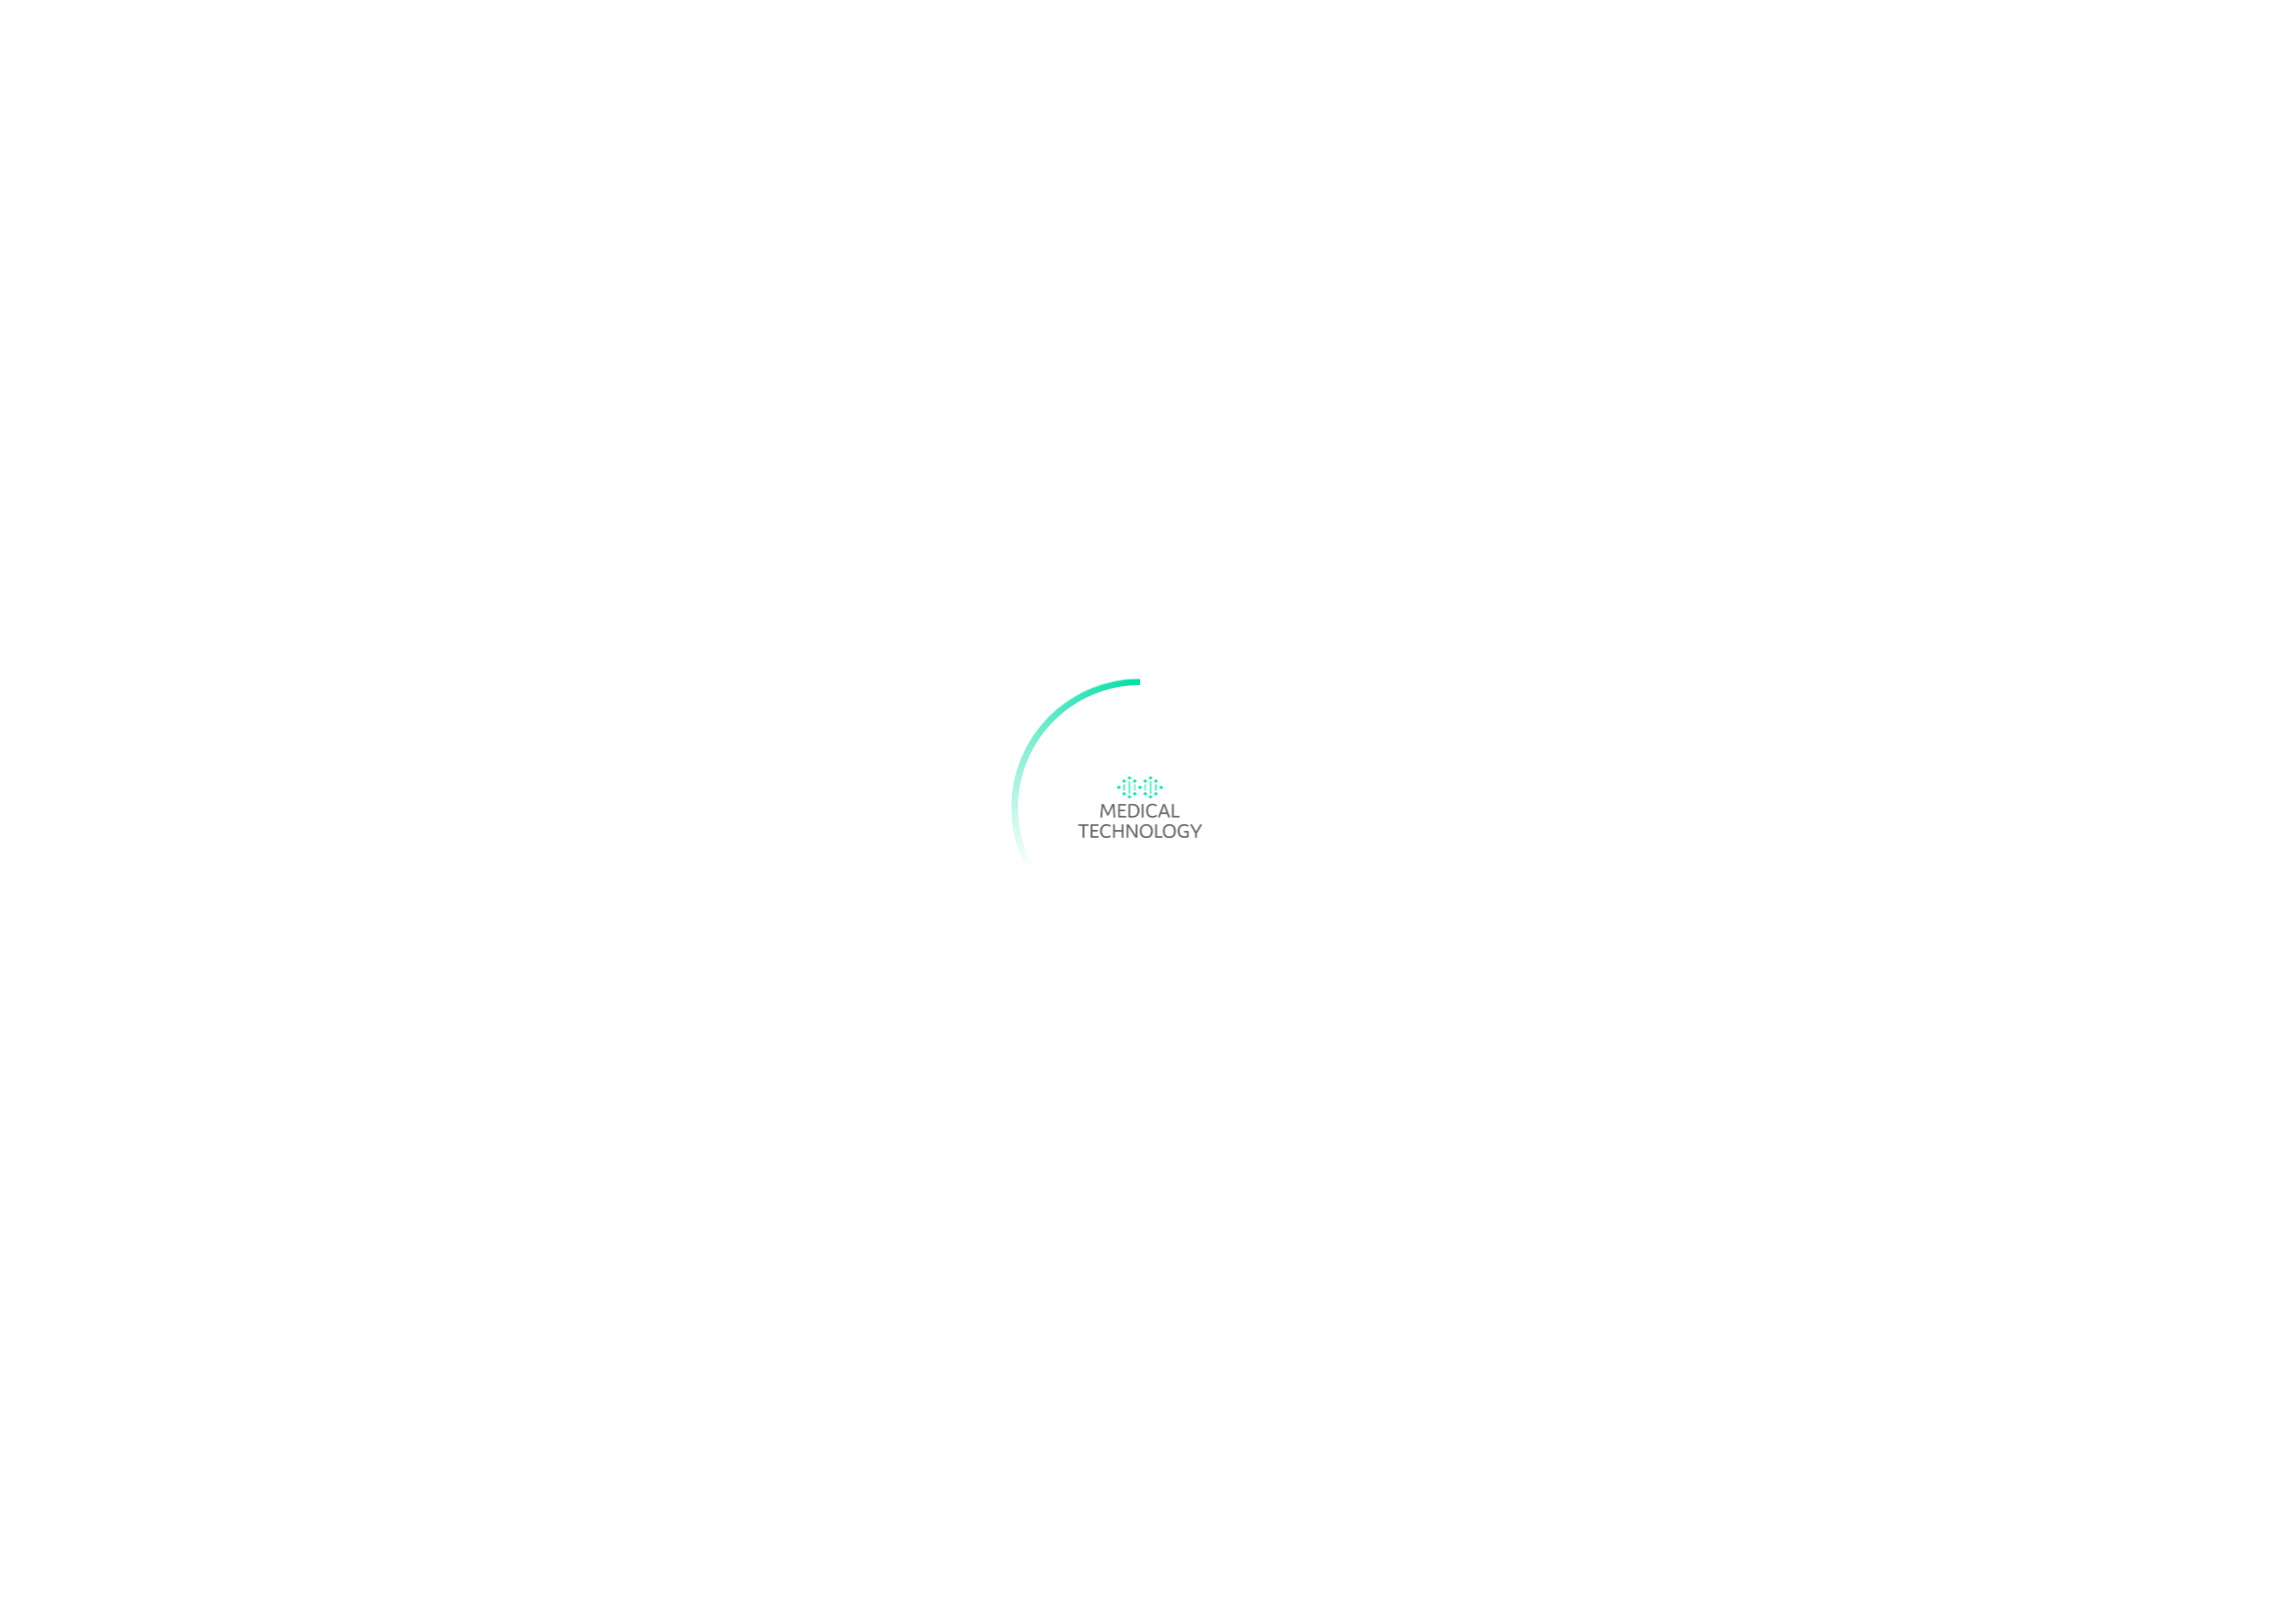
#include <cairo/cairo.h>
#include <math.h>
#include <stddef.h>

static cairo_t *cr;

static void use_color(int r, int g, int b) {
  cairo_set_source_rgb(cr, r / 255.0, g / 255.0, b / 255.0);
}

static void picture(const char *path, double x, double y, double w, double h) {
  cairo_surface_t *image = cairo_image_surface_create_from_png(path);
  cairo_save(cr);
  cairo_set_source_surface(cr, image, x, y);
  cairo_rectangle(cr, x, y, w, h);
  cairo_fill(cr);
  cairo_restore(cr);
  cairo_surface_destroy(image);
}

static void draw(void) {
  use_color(255, 255, 255);
  cairo_paint(cr);
  picture("img_01.png", 1011, 678, 129, 188);
  use_color(255, 255, 255);
  cairo_arc(cr, 1140.5, 807.5, 122.5, 0, 2 * M_PI);
  cairo_fill(cr);
  picture("img_02.png", 1077, 776, 126, 62);
}

int main(void) {
  cairo_surface_t *surface = cairo_image_surface_create(CAIRO_FORMAT_RGB24, 2280, 1614);
  cr = cairo_create(surface);
  cairo_font_options_t *options = cairo_font_options_create();
  cairo_font_options_set_hint_metrics(options, CAIRO_HINT_METRICS_OFF);
  cairo_font_options_set_hint_style(options, CAIRO_HINT_STYLE_NONE);
  cairo_set_font_options(cr, options);
  cairo_set_miter_limit(cr, 4);
  draw();
  cairo_surface_write_to_png(surface, "out.png");
  cairo_font_options_destroy(options);
  cairo_destroy(cr);
  cairo_surface_destroy(surface);
  return 0;
}
